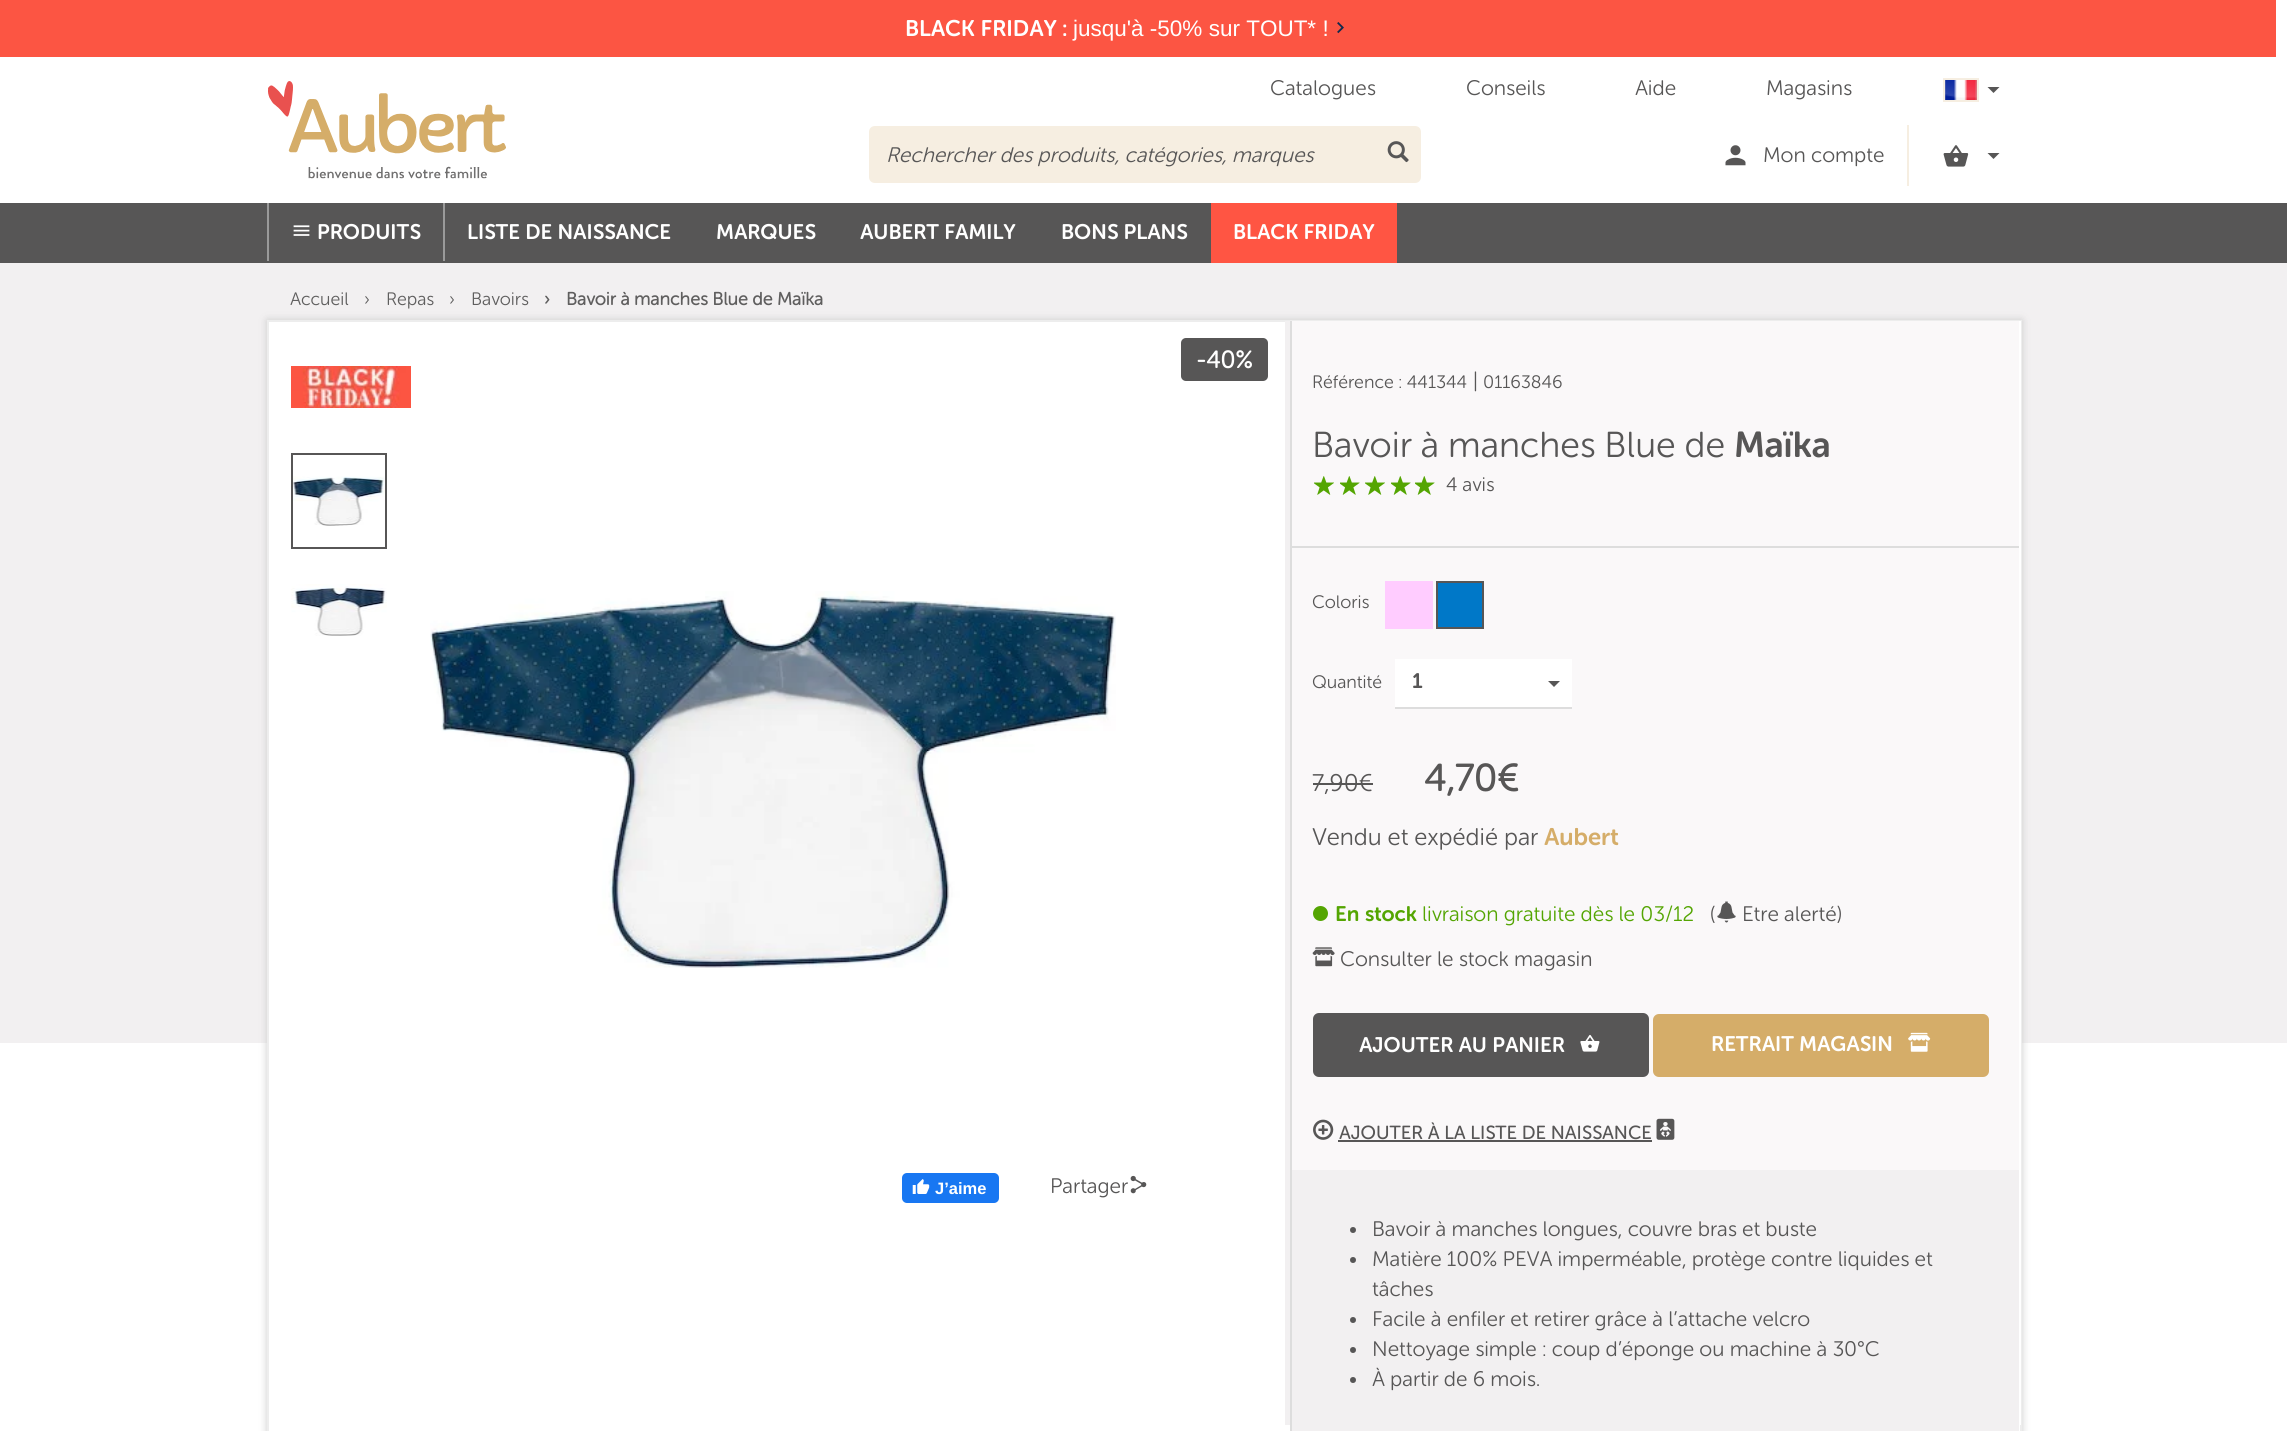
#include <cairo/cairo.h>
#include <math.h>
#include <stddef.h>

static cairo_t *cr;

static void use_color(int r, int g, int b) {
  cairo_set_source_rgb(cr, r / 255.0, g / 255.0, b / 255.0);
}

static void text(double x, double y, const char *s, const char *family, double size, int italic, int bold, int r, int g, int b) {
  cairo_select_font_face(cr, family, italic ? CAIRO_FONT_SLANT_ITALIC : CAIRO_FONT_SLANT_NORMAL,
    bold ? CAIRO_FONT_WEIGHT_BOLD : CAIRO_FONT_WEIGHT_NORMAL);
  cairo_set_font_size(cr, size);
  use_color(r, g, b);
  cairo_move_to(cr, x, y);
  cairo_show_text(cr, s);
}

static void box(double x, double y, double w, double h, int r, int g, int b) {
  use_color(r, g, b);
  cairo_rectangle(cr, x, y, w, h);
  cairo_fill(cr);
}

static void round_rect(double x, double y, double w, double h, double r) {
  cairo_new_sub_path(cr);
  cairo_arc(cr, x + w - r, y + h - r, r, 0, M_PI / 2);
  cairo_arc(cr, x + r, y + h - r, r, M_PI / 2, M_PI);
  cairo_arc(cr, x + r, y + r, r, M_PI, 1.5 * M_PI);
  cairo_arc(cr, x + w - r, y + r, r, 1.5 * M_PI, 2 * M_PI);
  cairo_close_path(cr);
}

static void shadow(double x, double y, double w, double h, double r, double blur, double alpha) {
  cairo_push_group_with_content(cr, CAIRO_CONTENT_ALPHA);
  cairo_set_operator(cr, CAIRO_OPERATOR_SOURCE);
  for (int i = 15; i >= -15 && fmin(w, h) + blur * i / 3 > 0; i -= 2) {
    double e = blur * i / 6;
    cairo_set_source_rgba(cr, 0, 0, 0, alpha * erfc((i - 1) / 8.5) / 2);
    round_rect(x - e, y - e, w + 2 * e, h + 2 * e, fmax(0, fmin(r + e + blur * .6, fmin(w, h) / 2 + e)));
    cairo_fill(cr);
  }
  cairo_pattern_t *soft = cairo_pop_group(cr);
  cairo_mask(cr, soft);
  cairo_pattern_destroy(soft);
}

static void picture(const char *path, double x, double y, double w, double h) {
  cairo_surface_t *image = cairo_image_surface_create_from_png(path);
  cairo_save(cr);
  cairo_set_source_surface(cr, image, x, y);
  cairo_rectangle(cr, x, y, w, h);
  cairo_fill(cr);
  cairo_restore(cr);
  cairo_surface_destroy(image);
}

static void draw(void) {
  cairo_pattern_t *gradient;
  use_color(255, 255, 255);
  cairo_paint(cr);
  box(0, 0, 2276, 57, 252, 85, 67);
  picture("img_01.png", 1337, 22, 7, 12);
  picture("img_02.png", 1945, 80, 32, 20);
  cairo_rectangle(cr, 1944, 79, 34, 22);
  use_color(246, 238, 225);
  cairo_stroke(cr);
  use_color(87, 86, 86);
  cairo_new_path(cr);
  cairo_move_to(cr, 1987.5, 87);
  cairo_line_to(cr, 1999.5, 87);
  cairo_line_to(cr, 1993.5, 93);
  cairo_close_path(cr);
  cairo_fill(cr);
  picture("img_03.png", 268, 81, 238, 98);
  use_color(246, 238, 225);
  cairo_new_path(cr);
  cairo_move_to(cr, 875, 126);
  cairo_line_to(cr, 1355, 126);
  cairo_line_to(cr, 1355, 183);
  cairo_line_to(cr, 875, 183);
  cairo_curve_to(cr, 871.5, 183, 869, 180.5, 869, 177);
  cairo_line_to(cr, 869, 132);
  cairo_curve_to(cr, 869, 128.5, 871.5, 126, 875, 126);
  cairo_close_path(cr);
  cairo_fill(cr);
  cairo_new_path(cr);
  cairo_move_to(cr, 1355, 126);
  cairo_line_to(cr, 1415, 126);
  cairo_curve_to(cr, 1418.5, 126, 1421, 128.5, 1421, 132);
  cairo_line_to(cr, 1421, 177);
  cairo_curve_to(cr, 1421, 180.5, 1418.5, 183, 1415, 183);
  cairo_line_to(cr, 1355, 183);
  cairo_close_path(cr);
  cairo_fill(cr);
  picture("img_04.png", 1387, 141, 22, 22);
  box(1907, 125, 2, 61, 246, 238, 225);
  picture("img_05.png", 1725, 145, 21, 21);
  picture("img_06.png", 1943, 145, 26, 22);
  use_color(87, 86, 86);
  cairo_new_path(cr);
  cairo_move_to(cr, 1987.5, 153);
  cairo_line_to(cr, 1999.5, 153);
  cairo_line_to(cr, 1993.5, 159);
  cairo_close_path(cr);
  cairo_fill(cr);
  box(0, 203, 2287, 60, 87, 86, 86);
  box(443, 203, 2, 58, 154, 154, 154);
  box(267, 203, 2, 58, 154, 154, 154);
  picture("img_07.png", 293, 225, 17, 11);
  box(1211, 203, 186, 60, 255, 85, 67);
  box(0, 263, 2287, 780, 242, 240, 241);
  use_color(204, 204, 204);
  shadow(267, 320, 1755, 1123, 0, 4, 1);
  use_color(255, 255, 255);
  cairo_rectangle(cr, 268, 321, 1753, 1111);
  cairo_fill_preserve(cr);
  use_color(237, 237, 237);
  cairo_stroke(cr);
  gradient = cairo_pattern_create_linear(269, 873, 2021, 873);
  cairo_pattern_add_color_stop_rgba(gradient, 0, 0, 0, 0, 0);
  cairo_pattern_add_color_stop_rgba(gradient, 0.58, 0.949, 0.941, 0.945, 0);
  cairo_pattern_add_color_stop_rgba(gradient, 0.58, 0.949, 0.941, 0.945, 1);
  cairo_pattern_add_color_stop_rgba(gradient, 1, 0.949, 0.941, 0.945, 1);
  cairo_set_source(cr, gradient);
  cairo_pattern_destroy(gradient);
  cairo_rectangle(cr, 1285, 321, 5, 1104);
  cairo_fill(cr);
  use_color(87, 86, 86);
  round_rect(1181, 338, 87, 43, 5);
  cairo_fill(cr);
  picture("img_08.png", 291, 366, 120, 42);
  picture("img_09.png", 293, 476, 92, 50);
  cairo_rectangle(cr, 292, 454, 94, 94);
  cairo_stroke(cr);
  picture("img_10.png", 291, 584, 96, 52);
  picture("img_11.png", 430, 591, 686, 377);
  use_color(24, 119, 242);
  round_rect(902, 1173, 97, 30, 5);
  cairo_fill(cr);
  picture("img_12.png", 912, 1179, 18, 15);
  picture("img_13.png", 1130, 1175, 17, 19);
  box(1292, 321, 727, 849, 250, 248, 249);
  box(1290, 321, 2, 1104, 221, 221, 221);
  picture("img_14.png", 1314, 476, 20, 19);
  picture("img_15.png", 1340, 476, 20, 19);
  picture("img_14.png", 1365, 476, 20, 19);
  picture("img_15.png", 1391, 476, 20, 19);
  picture("img_15.png", 1415, 476, 20, 19);
  box(1290, 546, 729, 2, 221, 221, 221);
  box(1385, 581, 48, 48, 255, 204, 255);
  use_color(0, 120, 200);
  cairo_rectangle(cr, 1437, 582, 46, 46);
  cairo_fill_preserve(cr);
  use_color(87, 86, 86);
  cairo_stroke(cr);
  box(1395, 659, 177, 48, 255, 255, 255);
  box(1395, 707, 177, 2, 221, 221, 221);
  use_color(87, 86, 86);
  cairo_new_path(cr);
  cairo_move_to(cr, 1548, 681);
  cairo_line_to(cr, 1560, 681);
  cairo_line_to(cr, 1554, 687);
  cairo_close_path(cr);
  cairo_fill(cr);
  box(1313, 783, 60, 2, 87, 86, 86);
  use_color(84, 165, 2);
  cairo_arc(cr, 1320.5, 913.5, 7.5, 0, 2 * M_PI);
  cairo_fill(cr);
  picture("img_16.png", 1717, 901, 19, 22);
  picture("img_17.png", 1312, 947, 23, 20);
  use_color(87, 86, 86);
  round_rect(1314, 1014, 334, 62, 5);
  cairo_fill_preserve(cr);
  cairo_stroke(cr);
  picture("img_18.png", 1580, 1034, 20, 18);
  use_color(213, 173, 105);
  round_rect(1654, 1015, 334, 61, 5);
  cairo_fill_preserve(cr);
  cairo_stroke(cr);
  picture("img_19.png", 1908, 1032, 23, 20);
  picture("img_20.png", 1313, 1119, 21, 21);
  box(1338, 1140, 314, 2, 87, 86, 86);
  picture("img_21.png", 1656, 1118, 19, 22);
  box(1292, 1170, 727, 255, 242, 240, 241);
  use_color(87, 86, 86);
  cairo_arc(cr, 1353, 1230, 3, 0, 2 * M_PI);
  cairo_fill(cr);
  cairo_arc(cr, 1353, 1260, 3, 0, 2 * M_PI);
  cairo_fill(cr);
  cairo_arc(cr, 1353, 1320, 3, 0, 2 * M_PI);
  cairo_fill(cr);
  cairo_arc(cr, 1353, 1350, 3, 0, 2 * M_PI);
  cairo_fill(cr);
  cairo_arc(cr, 1353, 1380, 3, 0, 2 * M_PI);
  cairo_fill(cr);
  box(2019, 321, 2, 1104, 255, 255, 255);
  box(1290, 1425, 729, 6, 242, 240, 241);
  box(1290, 1425, 2, 6, 221, 221, 221);
  text(905, 36, "BLACK FRIDAY :", "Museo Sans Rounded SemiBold", 22.5, 0, 0, 255, 255, 255);
  text(1073, 36, "jusqu'à -50% sur TOUT* !", "Liberation Sans", 22.5, 0, 0, 255, 255, 255);
  text(1270, 95, "Catalogues", "Museo Sans Rounded Light", 21, 0, 0, 87, 86, 86);
  text(1466, 95, "Conseils", "Museo Sans Rounded Light", 21, 0, 0, 87, 86, 86);
  text(1635, 95, "Aide", "Museo Sans Rounded Light", 21, 0, 0, 87, 86, 86);
  text(1766, 95, "Magasins", "Museo Sans Rounded Light", 21, 0, 0, 87, 86, 86);
  text(886, 162, "Rechercher des produits, catégories, marques", "Museo Sans Rounded Light", 21, 1, 0, 87, 86, 86);
  text(1763, 162, "Mon compte", "Museo Sans Rounded Light", 21, 0, 0, 87, 86, 86);
  text(317, 239, "PRODUITS", "Museo Sans Rounded SemiBold", 21, 0, 0, 255, 255, 255);
  text(467, 239, "LISTE DE NAISSANCE", "Museo Sans Rounded SemiBold", 21, 0, 0, 255, 255, 255);
  text(716, 239, "MARQUES", "Museo Sans Rounded SemiBold", 21, 0, 0, 255, 255, 255);
  text(860, 239, "AUBERT FAMILY", "Museo Sans Rounded SemiBold", 21, 0, 0, 255, 255, 255);
  text(1061, 239, "BONS PLANS", "Museo Sans Rounded SemiBold", 21, 0, 0, 255, 255, 255);
  text(1233, 239, "BLACK FRIDAY", "Museo Sans Rounded SemiBold", 21, 0, 0, 255, 255, 255);
  text(290, 305, "Accueil", "Museo Sans Rounded Light", 18, 0, 0, 95, 94, 94);
  text(364, 305, "›", "Museo Sans Rounded Light", 18, 0, 0, 95, 94, 94);
  text(386, 305, "Repas", "Museo Sans Rounded Light", 18, 0, 0, 95, 94, 94);
  text(449, 305, "›", "Museo Sans Rounded Light", 18, 0, 0, 95, 94, 94);
  text(471, 305, "Bavoirs", "Museo Sans Rounded Light", 18, 0, 0, 95, 94, 94);
  text(544, 305, "›", "Museo Sans Rounded", 18, 0, 1, 95, 94, 94);
  text(566, 305, "Bavoir à manches Blue de Maïka", "Museo Sans Rounded", 18, 0, 1, 95, 94, 94);
  text(1196, 368, "-40%", "Museo Sans Rounded", 24, 0, 1, 255, 255, 255);
  text(935, 1194, "J’aime", "Liberation Sans", 16.5, 0, 1, 255, 255, 255);
  text(1050, 1193, "Partager", "Museo Sans Rounded Light", 21, 0, 0, 87, 86, 86);
  text(1312, 388, "Référence : 441344", "Museo Sans Rounded Light", 18, 0, 0, 87, 86, 86);
  text(1473, 388, "|", "Museo Sans Rounded Light", 21, 0, 0, 87, 86, 86);
  text(1483, 388, "01163846", "Museo Sans Rounded Light", 18, 0, 0, 87, 86, 86);
  text(1312, 457, "Bavoir à manches Blue de", "Museo Sans Rounded Light", 36, 0, 0, 87, 86, 86);
  text(1734, 457, "Maïka", "Museo Sans Rounded SemiBold", 36, 0, 0, 87, 86, 86);
  text(1446, 491, "4 avis", "Museo Sans Rounded Light", 19.5, 0, 0, 87, 86, 86);
  text(1312, 608, "Coloris", "Museo Sans Rounded Light", 18, 0, 0, 87, 86, 86);
  text(1312, 688, "Quantité", "Museo Sans Rounded Light", 18, 0, 0, 87, 86, 86);
  text(1412, 688, "1", "Museo Sans Rounded SemiBold", 21, 0, 0, 87, 86, 86);
  text(1312, 791, "7,90€", "Museo Sans Rounded Light", 24, 0, 0, 87, 86, 86);
  text(1424, 791, "4,70€", "Museo Sans Rounded", 37.5, 0, 1, 87, 86, 86);
  text(1312, 845, "Vendu et expédié par", "Museo Sans Rounded Light", 24, 0, 0, 87, 86, 86);
  text(1544, 845, "Aubert", "Museo Sans Rounded SemiBold", 24, 0, 0, 213, 173, 105);
  text(1335, 921, "En stock", "Museo Sans Rounded SemiBold", 21, 0, 0, 84, 165, 2);
  text(1422, 921, "livraison gratuite dès le 03/12", "Museo Sans Rounded Light", 21, 0, 0, 84, 165, 2);
  text(1710, 921, "(", "Museo Sans Rounded Light", 21, 0, 0, 87, 86, 86);
  text(1742, 921, "Etre alerté)", "Museo Sans Rounded Light", 21, 0, 0, 87, 86, 86);
  text(1340, 966, "Consulter le stock magasin", "Museo Sans Rounded Light", 21, 0, 0, 87, 86, 86);
  text(1359, 1052, "AJOUTER AU PANIER", "Museo Sans Rounded SemiBold", 21, 0, 0, 255, 255, 255);
  text(1711, 1051, "RETRAIT MAGASIN", "Museo Sans Rounded SemiBold", 21, 0, 0, 255, 255, 255);
  text(1339, 1139, "AJOUTER À LA LISTE DE NAISSANCE", "Museo Sans Rounded", 18.9, 0, 0, 87, 86, 86);
  text(1372, 1236, "Bavoir à manches longues, couvre bras et buste", "Museo Sans Rounded Light", 21, 0, 0, 87, 86, 86);
  text(1372, 1266, "Matière 100% PEVA imperméable, protège contre liquides et", "Museo Sans Rounded Light", 21, 0, 0, 87, 86, 86);
  text(1372, 1296, "tâches", "Museo Sans Rounded Light", 21, 0, 0, 87, 86, 86);
  text(1372, 1326, "Facile à enfiler et retirer grâce à l’attache velcro", "Museo Sans Rounded Light", 21, 0, 0, 87, 86, 86);
  text(1372, 1356, "Nettoyage simple : coup d’éponge ou machine à 30°C", "Museo Sans Rounded Light", 21, 0, 0, 87, 86, 86);
  text(1372, 1386, "À partir de 6 mois.", "Museo Sans Rounded Light", 21, 0, 0, 87, 86, 86);
}

int main(void) {
  cairo_surface_t *surface = cairo_image_surface_create(CAIRO_FORMAT_RGB24, 2287, 1431);
  cr = cairo_create(surface);
  cairo_font_options_t *options = cairo_font_options_create();
  cairo_font_options_set_hint_metrics(options, CAIRO_HINT_METRICS_OFF);
  cairo_font_options_set_hint_style(options, CAIRO_HINT_STYLE_NONE);
  cairo_set_font_options(cr, options);
  cairo_set_miter_limit(cr, 4);
  draw();
  cairo_surface_write_to_png(surface, "out.png");
  cairo_font_options_destroy(options);
  cairo_destroy(cr);
  cairo_surface_destroy(surface);
  return 0;
}
